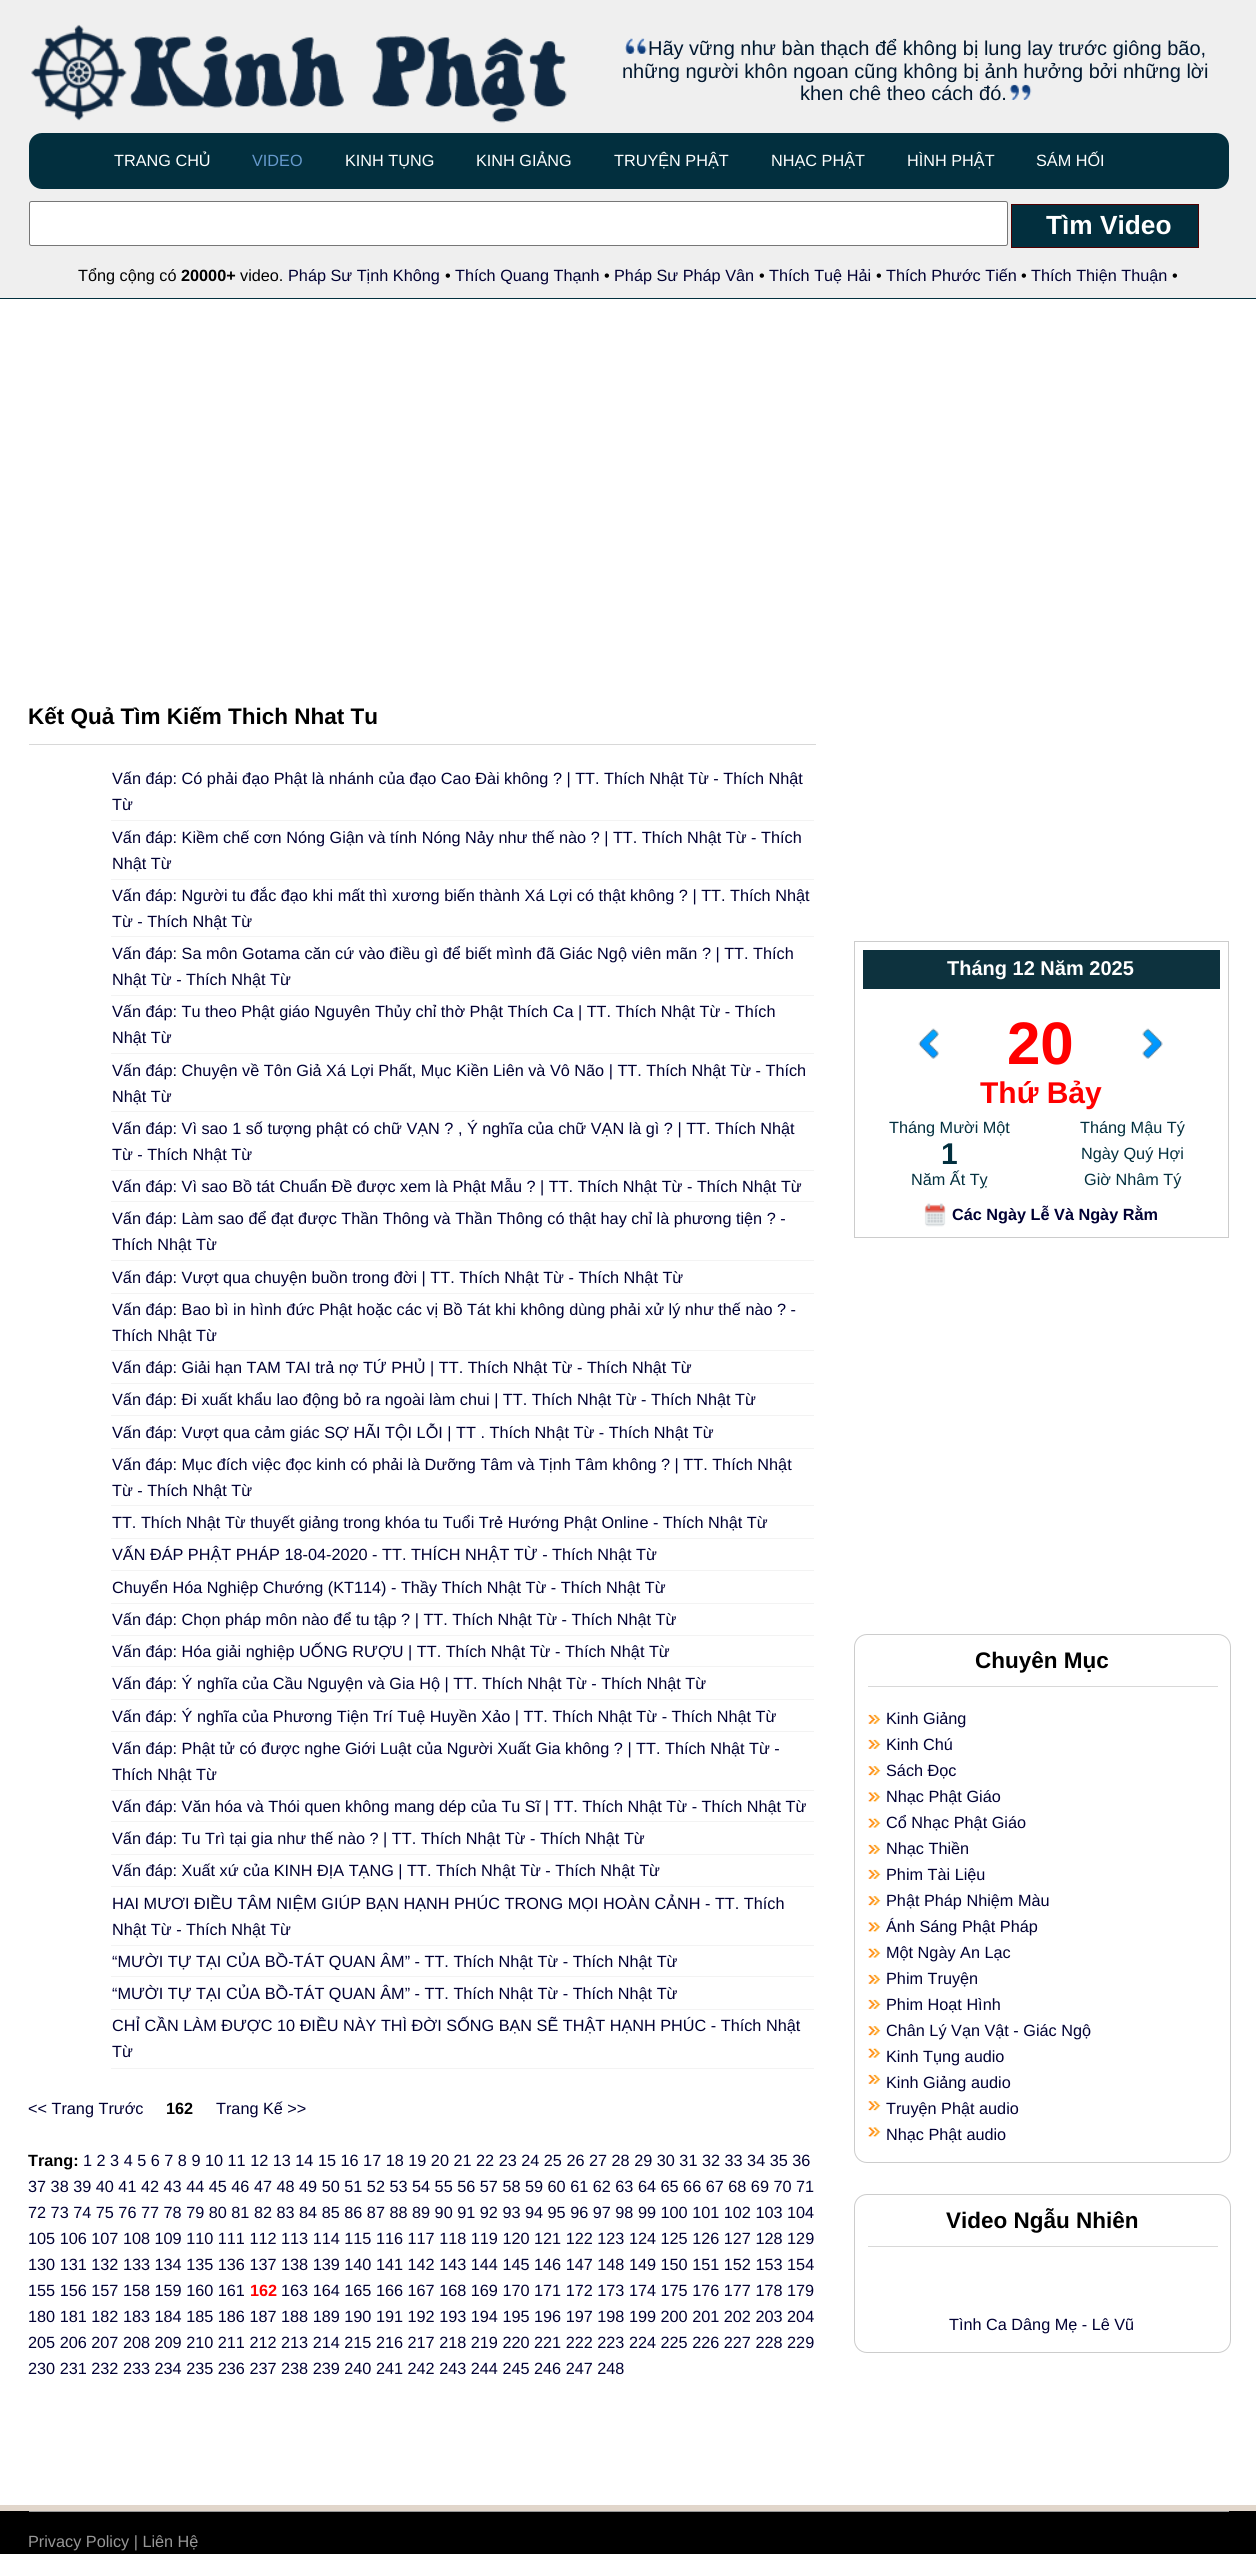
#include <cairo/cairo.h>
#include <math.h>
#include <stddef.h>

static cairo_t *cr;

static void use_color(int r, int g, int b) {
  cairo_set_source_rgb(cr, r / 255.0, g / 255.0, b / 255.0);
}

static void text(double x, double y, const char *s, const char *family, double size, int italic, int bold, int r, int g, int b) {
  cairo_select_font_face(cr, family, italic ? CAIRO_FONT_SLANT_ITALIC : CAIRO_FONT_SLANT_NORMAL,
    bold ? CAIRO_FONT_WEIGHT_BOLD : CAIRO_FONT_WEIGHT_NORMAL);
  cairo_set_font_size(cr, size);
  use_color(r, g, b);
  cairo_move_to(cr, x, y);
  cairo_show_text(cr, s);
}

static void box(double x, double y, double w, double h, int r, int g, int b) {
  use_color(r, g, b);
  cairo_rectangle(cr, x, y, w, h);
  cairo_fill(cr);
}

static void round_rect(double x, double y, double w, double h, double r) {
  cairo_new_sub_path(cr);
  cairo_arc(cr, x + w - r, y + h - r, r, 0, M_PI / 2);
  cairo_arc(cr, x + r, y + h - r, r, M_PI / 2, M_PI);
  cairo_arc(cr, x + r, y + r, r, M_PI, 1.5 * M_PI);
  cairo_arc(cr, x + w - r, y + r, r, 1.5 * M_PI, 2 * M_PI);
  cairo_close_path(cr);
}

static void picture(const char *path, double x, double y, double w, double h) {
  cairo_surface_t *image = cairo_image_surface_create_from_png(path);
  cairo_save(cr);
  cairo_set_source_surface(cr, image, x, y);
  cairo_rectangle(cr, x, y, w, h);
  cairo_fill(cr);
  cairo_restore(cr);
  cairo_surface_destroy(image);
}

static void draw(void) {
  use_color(0, 0, 0);
  cairo_paint(cr);
  box(0, 0, 1256, 298, 239, 239, 239);
  picture("img_01.png", 31, 24, 536, 99);
  picture("img_02.png", 625, 38, 22, 16);
  picture("img_03.png", 1009, 84, 23, 16);
  use_color(2, 47, 62);
  round_rect(29, 133, 1200, 56, 13);
  cairo_fill(cr);
  use_color(255, 255, 255);
  round_rect(29.5, 201.5, 978, 44, 2);
  cairo_fill_preserve(cr);
  use_color(118, 118, 118);
  cairo_set_line_width(cr, 1);
  cairo_stroke(cr);
  use_color(2, 47, 62);
  cairo_rectangle(cr, 1011.5, 204.5, 187, 43);
  cairo_fill_preserve(cr);
  use_color(81, 0, 0);
  cairo_stroke(cr);
  box(0, 299, 1256, 2206, 255, 255, 255);
  box(0, 298, 1256, 1, 2, 47, 62);
  box(0, 2505, 1256, 6, 225, 214, 203);
  box(29, 744, 787, 1, 216, 216, 216);
  box(111, 820, 703, 1, 243, 243, 243);
  box(111, 879, 703, 1, 243, 243, 243);
  box(111, 936, 703, 1, 243, 243, 243);
  box(111, 995, 703, 1, 243, 243, 243);
  box(111, 1053, 703, 1, 243, 243, 243);
  box(111, 1111, 703, 1, 243, 243, 243);
  box(111, 1170, 703, 1, 243, 243, 243);
  box(111, 1201, 703, 1, 243, 243, 243);
  box(111, 1260, 703, 1, 243, 243, 243);
  box(111, 1293, 703, 1, 243, 243, 243);
  box(111, 1350, 703, 1, 243, 243, 243);
  box(111, 1383, 703, 1, 243, 243, 243);
  box(111, 1415, 703, 1, 243, 243, 243);
  box(111, 1448, 703, 1, 243, 243, 243);
  box(111, 1505, 703, 1, 243, 243, 243);
  box(111, 1538, 703, 1, 243, 243, 243);
  box(111, 1570, 703, 1, 243, 243, 243);
  box(111, 1603, 703, 1, 243, 243, 243);
  box(111, 1635, 703, 1, 243, 243, 243);
  box(111, 1666, 703, 1, 243, 243, 243);
  box(111, 1699, 703, 1, 243, 243, 243);
  box(111, 1731, 703, 1, 243, 243, 243);
  box(111, 1790, 703, 1, 243, 243, 243);
  box(111, 1821, 703, 1, 243, 243, 243);
  box(111, 1854, 703, 1, 243, 243, 243);
  box(111, 1886, 703, 1, 243, 243, 243);
  box(111, 1945, 703, 1, 243, 243, 243);
  box(111, 1976, 703, 1, 243, 243, 243);
  box(111, 2009, 703, 1, 243, 243, 243);
  box(111, 2068, 703, 1, 243, 243, 243);
  cairo_rectangle(cr, 854.5, 941.5, 374, 296);
  use_color(204, 204, 204);
  cairo_stroke(cr);
  box(863, 950, 357, 39, 13, 50, 62);
  picture("img_04.png", 918, 1028, 21, 31);
  picture("img_05.png", 1142, 1028, 21, 31);
  picture("img_06.png", 924, 1203, 22, 24);
  round_rect(854.5, 1634.5, 376, 528, 12.5);
  use_color(204, 204, 204);
  cairo_stroke(cr);
  box(868, 1686, 350, 1, 216, 216, 216);
  picture("img_07.png", 868, 1714, 13, 10);
  picture("img_07.png", 868, 1739, 13, 10);
  picture("img_08.png", 868, 1766, 13, 10);
  picture("img_09.png", 868, 1792, 13, 10);
  picture("img_10.png", 868, 1818, 13, 10);
  picture("img_07.png", 868, 1844, 13, 10);
  picture("img_07.png", 868, 1869, 13, 10);
  picture("img_08.png", 868, 1896, 13, 10);
  picture("img_09.png", 868, 1922, 13, 10);
  picture("img_10.png", 868, 1948, 13, 10);
  picture("img_07.png", 868, 1974, 13, 10);
  picture("img_07.png", 868, 1999, 13, 10);
  picture("img_08.png", 868, 2026, 13, 10);
  picture("img_11.png", 868, 2048, 13, 10);
  picture("img_07.png", 868, 2074, 13, 10);
  picture("img_08.png", 868, 2101, 13, 10);
  picture("img_09.png", 868, 2127, 13, 10);
  round_rect(854.5, 2194.5, 376, 158, 12.5);
  use_color(204, 204, 204);
  cairo_stroke(cr);
  box(868, 2246, 350, 1, 216, 216, 216);
  box(29, 2511, 1200, 1, 151, 151, 151);
  text(648, 55, "Hãy vững như bàn thạch để không bị lung lay trước giông bão,", "Liberation Sans", 20, 0, 0, 0, 23, 47);
  text(622, 78, "những người khôn ngoan cũng không bị ảnh hưởng bởi những lời", "Liberation Sans", 20, 0, 0, 0, 23, 47);
  text(800, 100, "khen chê theo cách đó.", "Liberation Sans", 20, 0, 0, 0, 23, 47);
  text(114, 166, "TRANG CHỦ", "Liberation Sans", 16.25, 0, 0, 255, 255, 255);
  text(252, 166, "VIDEO", "Liberation Sans", 16.25, 0, 0, 102, 153, 204);
  text(345, 166, "KINH TỤNG", "Liberation Sans", 16.25, 0, 0, 255, 255, 255);
  text(476, 166, "KINH GIẢNG", "Liberation Sans", 16.25, 0, 0, 255, 255, 255);
  text(614, 166, "TRUYỆN PHẬT", "Liberation Sans", 16.25, 0, 0, 255, 255, 255);
  text(771, 166, "NHẠC PHẬT", "Liberation Sans", 16.25, 0, 0, 255, 255, 255);
  text(907, 166, "HÌNH PHẬT", "Liberation Sans", 16.25, 0, 0, 255, 255, 255);
  text(1036, 166, "SÁM HỐI", "Liberation Sans", 16.25, 0, 0, 255, 255, 255);
  text(1046, 234, "Tìm Video", "Liberation Sans", 26.25, 0, 1, 255, 255, 255);
  text(78, 281, "Tổng cộng có", "Liberation Sans", 16.25, 0, 0, 0, 0, 0);
  text(181, 281, "20000+", "Liberation Sans", 16.25, 0, 1, 0, 0, 0);
  text(240, 281, "video.", "Liberation Sans", 16.25, 0, 0, 0, 0, 0);
  text(288, 281, "Pháp Sư Tịnh Không", "Liberation Sans", 16.25, 0, 0, 0, 0, 51);
  text(445, 281, "•", "Liberation Sans", 16.25, 0, 0, 0, 0, 0);
  text(455, 281, "Thích Quang Thạnh", "Liberation Sans", 16.25, 0, 0, 0, 0, 51);
  text(604, 281, "•", "Liberation Sans", 16.25, 0, 0, 0, 0, 0);
  text(614, 281, "Pháp Sư Pháp Vân", "Liberation Sans", 16.25, 0, 0, 0, 0, 51);
  text(759, 281, "•", "Liberation Sans", 16.25, 0, 0, 0, 0, 0);
  text(769, 281, "Thích Tuệ Hải", "Liberation Sans", 16.25, 0, 0, 0, 0, 51);
  text(876, 281, "•", "Liberation Sans", 16.25, 0, 0, 0, 0, 0);
  text(886, 281, "Thích Phước Tiến", "Liberation Sans", 16.25, 0, 0, 0, 0, 51);
  text(1021, 281, "•", "Liberation Sans", 16.25, 0, 0, 0, 0, 0);
  text(1031, 281, "Thích Thiện Thuận", "Liberation Sans", 16.25, 0, 0, 0, 0, 51);
  text(1172, 281, "•", "Liberation Sans", 16.25, 0, 0, 0, 0, 0);
  text(28, 724, "Kết Quả Tìm Kiếm Thich Nhat Tu", "Liberation Sans", 22.5, 0, 1, 0, 0, 0);
  text(112, 784, "Vấn đáp: Có phải đạo Phật là nhánh của đạo Cao Đài không ? | TT. Thích Nhật Từ - Thích Nhật", "Liberation Sans", 16.25, 0, 0, 0, 0, 51);
  text(112, 810, "Từ", "Liberation Sans", 16.25, 0, 0, 0, 0, 51);
  text(112, 843, "Vấn đáp: Kiềm chế cơn Nóng Giận và tính Nóng Nảy như thế nào ? | TT. Thích Nhật Từ - Thích", "Liberation Sans", 16.25, 0, 0, 0, 0, 51);
  text(112, 869, "Nhật Từ", "Liberation Sans", 16.25, 0, 0, 0, 0, 51);
  text(112, 901, "Vấn đáp: Người tu đắc đạo khi mất thì xương biến thành Xá Lợi có thật không ? | TT. Thích Nhật", "Liberation Sans", 16.25, 0, 0, 0, 0, 51);
  text(112, 927, "Từ - Thích Nhật Từ", "Liberation Sans", 16.25, 0, 0, 0, 0, 51);
  text(112, 959, "Vấn đáp: Sa môn Gotama căn cứ vào điều gì để biết mình đã Giác Ngộ viên mãn ? | TT. Thích", "Liberation Sans", 16.25, 0, 0, 0, 0, 51);
  text(112, 985, "Nhật Từ - Thích Nhật Từ", "Liberation Sans", 16.25, 0, 0, 0, 0, 51);
  text(112, 1017, "Vấn đáp: Tu theo Phật giáo Nguyên Thủy chỉ thờ Phật Thích Ca | TT. Thích Nhật Từ - Thích", "Liberation Sans", 16.25, 0, 0, 0, 0, 51);
  text(112, 1043, "Nhật Từ", "Liberation Sans", 16.25, 0, 0, 0, 0, 51);
  text(112, 1076, "Vấn đáp: Chuyện về Tôn Giả Xá Lợi Phất, Mục Kiền Liên và Vô Não | TT. Thích Nhật Từ - Thích", "Liberation Sans", 16.25, 0, 0, 0, 0, 51);
  text(112, 1102, "Nhật Từ", "Liberation Sans", 16.25, 0, 0, 0, 0, 51);
  text(112, 1134, "Vấn đáp: Vì sao 1 số tượng phật có chữ VẠN ? , Ý nghĩa của chữ VẠN là gì ? | TT. Thích Nhật", "Liberation Sans", 16.25, 0, 0, 0, 0, 51);
  text(112, 1160, "Từ - Thích Nhật Từ", "Liberation Sans", 16.25, 0, 0, 0, 0, 51);
  text(112, 1192, "Vấn đáp: Vì sao Bồ tát Chuẩn Đề được xem là Phật Mẫu ? | TT. Thích Nhật Từ - Thích Nhật Từ", "Liberation Sans", 16.25, 0, 0, 0, 0, 51);
  text(112, 1224, "Vấn đáp: Làm sao để đạt được Thần Thông và Thần Thông có thật hay chỉ là phương tiện ? -", "Liberation Sans", 16.25, 0, 0, 0, 0, 51);
  text(112, 1250, "Thích Nhật Từ", "Liberation Sans", 16.25, 0, 0, 0, 0, 51);
  text(112, 1283, "Vấn đáp: Vượt qua chuyện buồn trong đời | TT. Thích Nhật Từ - Thích Nhật Từ", "Liberation Sans", 16.25, 0, 0, 0, 0, 51);
  text(112, 1315, "Vấn đáp: Bao bì in hình đức Phật hoặc các vị Bồ Tát khi không dùng phải xử lý như thế nào ? -", "Liberation Sans", 16.25, 0, 0, 0, 0, 51);
  text(112, 1341, "Thích Nhật Từ", "Liberation Sans", 16.25, 0, 0, 0, 0, 51);
  text(112, 1373, "Vấn đáp: Giải hạn TAM TAI trả nợ TỨ PHỦ | TT. Thích Nhật Từ - Thích Nhật Từ", "Liberation Sans", 16.25, 0, 0, 0, 0, 51);
  text(112, 1405, "Vấn đáp: Đi xuất khẩu lao động bỏ ra ngoài làm chui | TT. Thích Nhật Từ - Thích Nhật Từ", "Liberation Sans", 16.25, 0, 0, 0, 0, 51);
  text(112, 1438, "Vấn đáp: Vượt qua cảm giác SỢ HÃI TỘI LỖI | TT . Thích Nhật Từ - Thích Nhật Từ", "Liberation Sans", 16.25, 0, 0, 0, 0, 51);
  text(112, 1470, "Vấn đáp: Mục đích việc đọc kinh có phải là Dưỡng Tâm và Tịnh Tâm không ? | TT. Thích Nhật", "Liberation Sans", 16.25, 0, 0, 0, 0, 51);
  text(112, 1496, "Từ - Thích Nhật Từ", "Liberation Sans", 16.25, 0, 0, 0, 0, 51);
  text(112, 1528, "TT. Thích Nhật Từ thuyết giảng trong khóa tu Tuổi Trẻ Hướng Phật Online - Thích Nhật Từ", "Liberation Sans", 16.25, 0, 0, 0, 0, 51);
  text(112, 1560, "VẤN ĐÁP PHẬT PHÁP 18-04-2020 - TT. THÍCH NHẬT TỪ - Thích Nhật Từ", "Liberation Sans", 16.25, 0, 0, 0, 0, 51);
  text(112, 1593, "Chuyển Hóa Nghiệp Chướng (KT114) - Thầy Thích Nhật Từ - Thích Nhật Từ", "Liberation Sans", 16.25, 0, 0, 0, 0, 51);
  text(112, 1625, "Vấn đáp: Chọn pháp môn nào để tu tập ? | TT. Thích Nhật Từ - Thích Nhật Từ", "Liberation Sans", 16.25, 0, 0, 0, 0, 51);
  text(112, 1657, "Vấn đáp: Hóa giải nghiệp UỐNG RƯỢU | TT. Thích Nhật Từ - Thích Nhật Từ", "Liberation Sans", 16.25, 0, 0, 0, 0, 51);
  text(112, 1689, "Vấn đáp: Ý nghĩa của Cầu Nguyện và Gia Hộ | TT. Thích Nhật Từ - Thích Nhật Từ", "Liberation Sans", 16.25, 0, 0, 0, 0, 51);
  text(112, 1722, "Vấn đáp: Ý nghĩa của Phương Tiện Trí Tuệ Huyền Xảo | TT. Thích Nhật Từ - Thích Nhật Từ", "Liberation Sans", 16.25, 0, 0, 0, 0, 51);
  text(112, 1754, "Vấn đáp: Phật tử có được nghe Giới Luật của Người Xuất Gia không ? | TT. Thích Nhật Từ -", "Liberation Sans", 16.25, 0, 0, 0, 0, 51);
  text(112, 1780, "Thích Nhật Từ", "Liberation Sans", 16.25, 0, 0, 0, 0, 51);
  text(112, 1812, "Vấn đáp: Văn hóa và Thói quen không mang dép của Tu Sĩ | TT. Thích Nhật Từ - Thích Nhật Từ", "Liberation Sans", 16.25, 0, 0, 0, 0, 51);
  text(112, 1844, "Vấn đáp: Tu Trì tại gia như thế nào ? | TT. Thích Nhật Từ - Thích Nhật Từ", "Liberation Sans", 16.25, 0, 0, 0, 0, 51);
  text(112, 1876, "Vấn đáp: Xuất xứ của KINH ĐỊA TẠNG | TT. Thích Nhật Từ - Thích Nhật Từ", "Liberation Sans", 16.25, 0, 0, 0, 0, 51);
  text(112, 1909, "HAI MƯƠI ĐIỀU TÂM NIỆM GIÚP BẠN HẠNH PHÚC TRONG MỌI HOÀN CẢNH - TT. Thích", "Liberation Sans", 16.25, 0, 0, 0, 0, 51);
  text(112, 1935, "Nhật Từ - Thích Nhật Từ", "Liberation Sans", 16.25, 0, 0, 0, 0, 51);
  text(112, 1967, "“MƯỜI TỰ TẠI CỦA BỒ-TÁT QUAN ÂM” - TT. Thích Nhật Từ - Thích Nhật Từ", "Liberation Sans", 16.25, 0, 0, 0, 0, 51);
  text(112, 1999, "“MƯỜI TỰ TẠI CỦA BỒ-TÁT QUAN ÂM” - TT. Thích Nhật Từ - Thích Nhật Từ", "Liberation Sans", 16.25, 0, 0, 0, 0, 51);
  text(112, 2031, "CHỈ CẦN LÀM ĐƯỢC 10 ĐIỀU NÀY THÌ ĐỜI SỐNG BẠN SẼ THẬT HẠNH PHÚC - Thích Nhật", "Liberation Sans", 16.25, 0, 0, 0, 0, 51);
  text(112, 2057, "Từ", "Liberation Sans", 16.25, 0, 0, 0, 0, 51);
  text(28, 2114, "<< Trang Trước", "Liberation Sans", 16.25, 0, 0, 0, 0, 51);
  text(166, 2114, "162", "Liberation Sans", 16.25, 0, 1, 0, 0, 0);
  text(216, 2114, "Trang Kế >>", "Liberation Sans", 16.25, 0, 0, 0, 0, 51);
  text(28, 2166, "Trang:", "Liberation Sans", 16.25, 0, 1, 0, 0, 0);
  text(83, 2166, "1 2 3 4 5 6 7 8 9 10 11 12 13 14 15 16 17 18 19 20 21 22 23 24 25 26 27 28 29 30 31 32 33 34 35 36", "Liberation Sans", 16.25, 0, 0, 0, 0, 51);
  text(28, 2192, "37 38 39 40 41 42 43 44 45 46 47 48 49 50 51 52 53 54 55 56 57 58 59 60 61 62 63 64 65 66 67 68 69 70 71", "Liberation Sans", 16.25, 0, 0, 0, 0, 51);
  text(28, 2218, "72 73 74 75 76 77 78 79 80 81 82 83 84 85 86 87 88 89 90 91 92 93 94 95 96 97 98 99 100 101 102 103 104", "Liberation Sans", 16.25, 0, 0, 0, 0, 51);
  text(28, 2244, "105 106 107 108 109 110 111 112 113 114 115 116 117 118 119 120 121 122 123 124 125 126 127 128 129", "Liberation Sans", 16.25, 0, 0, 0, 0, 51);
  text(28, 2270, "130 131 132 133 134 135 136 137 138 139 140 141 142 143 144 145 146 147 148 149 150 151 152 153 154", "Liberation Sans", 16.25, 0, 0, 0, 0, 51);
  text(28, 2296, "155 156 157 158 159 160 161", "Liberation Sans", 16.25, 0, 0, 0, 0, 51);
  text(250, 2296, "162", "Liberation Sans", 16.25, 0, 1, 255, 0, 0);
  text(281, 2296, "163 164 165 166 167 168 169 170 171 172 173 174 175 176 177 178 179", "Liberation Sans", 16.25, 0, 0, 0, 0, 51);
  text(28, 2322, "180 181 182 183 184 185 186 187 188 189 190 191 192 193 194 195 196 197 198 199 200 201 202 203 204", "Liberation Sans", 16.25, 0, 0, 0, 0, 51);
  text(28, 2348, "205 206 207 208 209 210 211 212 213 214 215 216 217 218 219 220 221 222 223 224 225 226 227 228 229", "Liberation Sans", 16.25, 0, 0, 0, 0, 51);
  text(28, 2374, "230 231 232 233 234 235 236 237 238 239 240 241 242 243 244 245 246 247 248", "Liberation Sans", 16.25, 0, 0, 0, 0, 51);
  text(947, 975, "Tháng 12 Năm 2025", "Liberation Sans", 20, 0, 1, 255, 255, 255);
  text(1007, 1064, "20", "Liberation Sans", 60, 0, 1, 255, 0, 0);
  text(980, 1103, "Thứ Bảy", "Liberation Sans", 30, 0, 1, 255, 0, 0);
  text(889, 1133, "Tháng Mười Một", "Liberation Sans", 16.25, 0, 0, 2, 47, 62);
  text(941, 1164, "1", "Liberation Sans", 30, 0, 1, 2, 47, 62);
  text(911, 1185, "Năm Ất Tỵ", "Liberation Sans", 16.25, 0, 0, 2, 47, 62);
  text(1080, 1133, "Tháng Mậu Tý", "Liberation Sans", 16.25, 0, 0, 2, 47, 62);
  text(1081, 1159, "Ngày Quý Hợi", "Liberation Sans", 16.25, 0, 0, 2, 47, 62);
  text(1084, 1185, "Giờ Nhâm Tý", "Liberation Sans", 16.25, 0, 0, 2, 47, 62);
  text(952, 1220, "Các Ngày Lễ Và Ngày Rằm", "Liberation Sans", 16.25, 0, 1, 0, 0, 51);
  text(975, 1668, "Chuyên Mục", "Liberation Sans", 22.5, 0, 1, 0, 0, 0);
  text(886, 1724, "Kinh Giảng", "Liberation Sans", 16.25, 0, 0, 0, 0, 51);
  text(886, 1750, "Kinh Chú", "Liberation Sans", 16.25, 0, 0, 0, 0, 51);
  text(886, 1776, "Sách Đọc", "Liberation Sans", 16.25, 0, 0, 0, 0, 51);
  text(886, 1802, "Nhạc Phật Giáo", "Liberation Sans", 16.25, 0, 0, 0, 0, 51);
  text(886, 1828, "Cổ Nhạc Phật Giáo", "Liberation Sans", 16.25, 0, 0, 0, 0, 51);
  text(886, 1854, "Nhạc Thiền", "Liberation Sans", 16.25, 0, 0, 0, 0, 51);
  text(886, 1880, "Phim Tài Liệu", "Liberation Sans", 16.25, 0, 0, 0, 0, 51);
  text(886, 1906, "Phật Pháp Nhiệm Màu", "Liberation Sans", 16.25, 0, 0, 0, 0, 51);
  text(886, 1932, "Ánh Sáng Phật Pháp", "Liberation Sans", 16.25, 0, 0, 0, 0, 51);
  text(886, 1958, "Một Ngày An Lạc", "Liberation Sans", 16.25, 0, 0, 0, 0, 51);
  text(886, 1984, "Phim Truyện", "Liberation Sans", 16.25, 0, 0, 0, 0, 51);
  text(886, 2010, "Phim Hoạt Hình", "Liberation Sans", 16.25, 0, 0, 0, 0, 51);
  text(886, 2036, "Chân Lý Vạn Vật - Giác Ngộ", "Liberation Sans", 16.25, 0, 0, 0, 0, 51);
  text(886, 2062, "Kinh Tụng audio", "Liberation Sans", 16.25, 0, 0, 0, 0, 51);
  text(886, 2088, "Kinh Giảng audio", "Liberation Sans", 16.25, 0, 0, 0, 0, 51);
  text(886, 2114, "Truyện Phật audio", "Liberation Sans", 16.25, 0, 0, 0, 0, 51);
  text(886, 2140, "Nhạc Phật audio", "Liberation Sans", 16.25, 0, 0, 0, 0, 51);
  text(946, 2228, "Video Ngẫu Nhiên", "Liberation Sans", 22.5, 0, 1, 0, 0, 0);
  text(949, 2330, "Tình Ca Dâng Mẹ - Lê Vũ", "Liberation Sans", 16.25, 0, 0, 0, 0, 51);
  text(28, 2547, "Privacy Policy | Liên Hệ", "Liberation Sans", 16.25, 0, 0, 151, 151, 151);
}

int main(void) {
  cairo_surface_t *surface = cairo_image_surface_create(CAIRO_FORMAT_RGB24, 1256, 2554);
  cr = cairo_create(surface);
  cairo_font_options_t *options = cairo_font_options_create();
  cairo_font_options_set_hint_metrics(options, CAIRO_HINT_METRICS_OFF);
  cairo_font_options_set_hint_style(options, CAIRO_HINT_STYLE_NONE);
  cairo_set_font_options(cr, options);
  cairo_set_miter_limit(cr, 4);
  draw();
  cairo_surface_write_to_png(surface, "out.png");
  cairo_font_options_destroy(options);
  cairo_destroy(cr);
  cairo_surface_destroy(surface);
  return 0;
}
